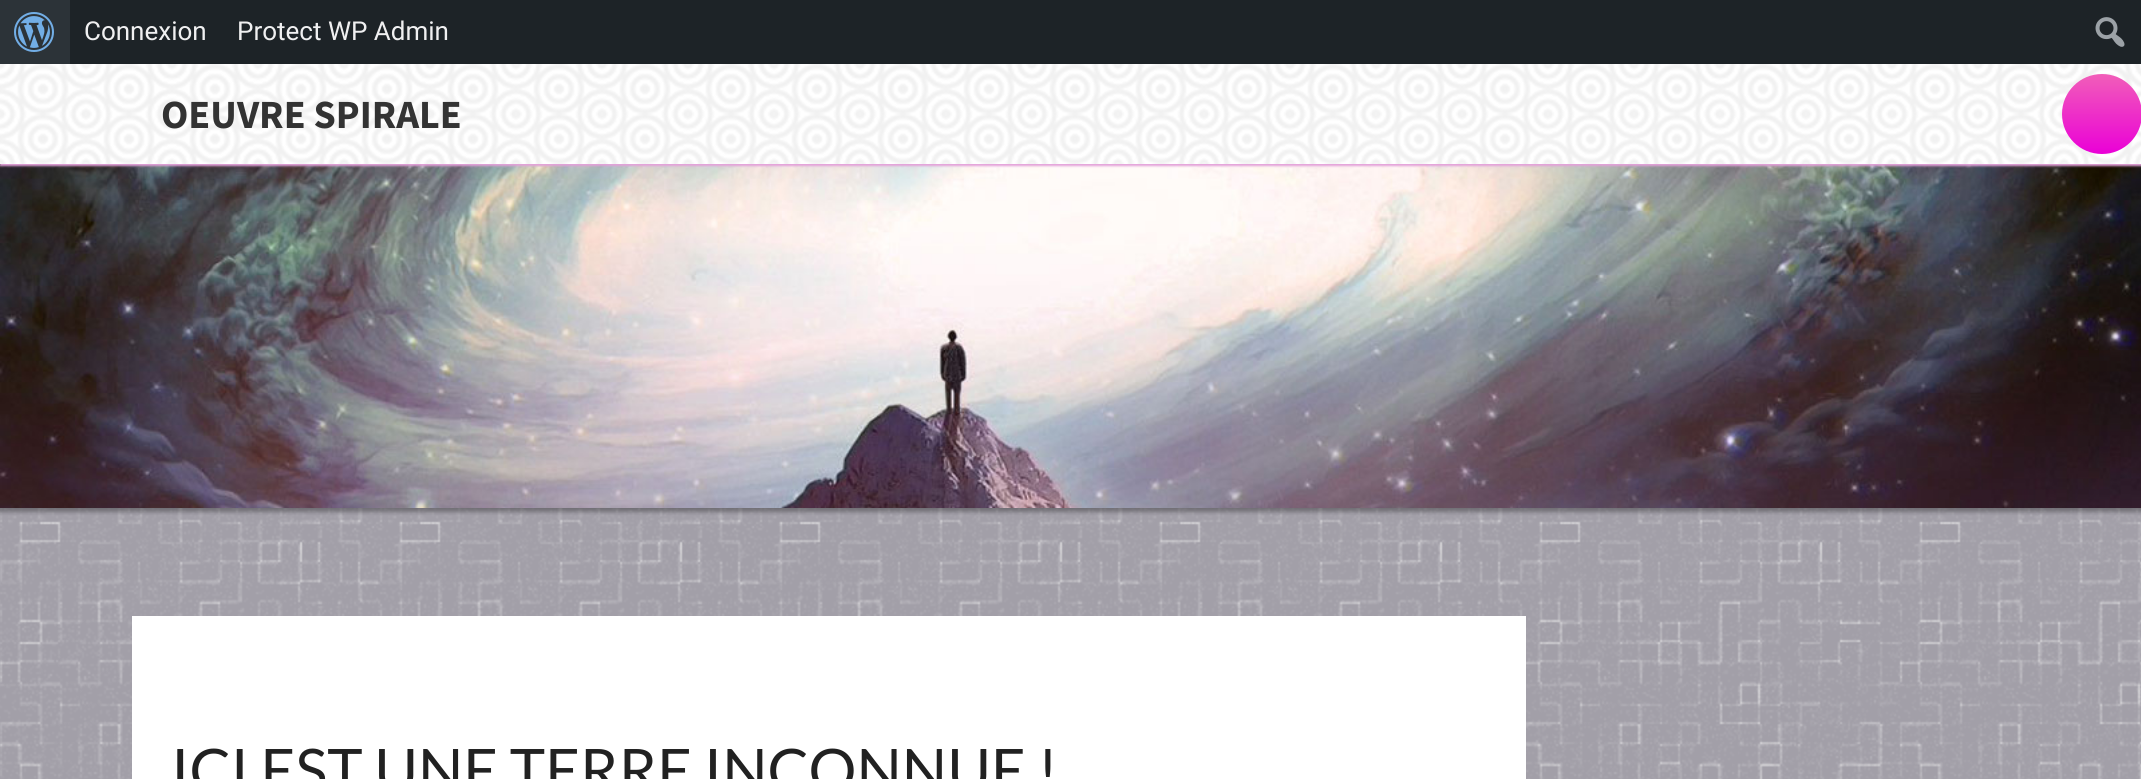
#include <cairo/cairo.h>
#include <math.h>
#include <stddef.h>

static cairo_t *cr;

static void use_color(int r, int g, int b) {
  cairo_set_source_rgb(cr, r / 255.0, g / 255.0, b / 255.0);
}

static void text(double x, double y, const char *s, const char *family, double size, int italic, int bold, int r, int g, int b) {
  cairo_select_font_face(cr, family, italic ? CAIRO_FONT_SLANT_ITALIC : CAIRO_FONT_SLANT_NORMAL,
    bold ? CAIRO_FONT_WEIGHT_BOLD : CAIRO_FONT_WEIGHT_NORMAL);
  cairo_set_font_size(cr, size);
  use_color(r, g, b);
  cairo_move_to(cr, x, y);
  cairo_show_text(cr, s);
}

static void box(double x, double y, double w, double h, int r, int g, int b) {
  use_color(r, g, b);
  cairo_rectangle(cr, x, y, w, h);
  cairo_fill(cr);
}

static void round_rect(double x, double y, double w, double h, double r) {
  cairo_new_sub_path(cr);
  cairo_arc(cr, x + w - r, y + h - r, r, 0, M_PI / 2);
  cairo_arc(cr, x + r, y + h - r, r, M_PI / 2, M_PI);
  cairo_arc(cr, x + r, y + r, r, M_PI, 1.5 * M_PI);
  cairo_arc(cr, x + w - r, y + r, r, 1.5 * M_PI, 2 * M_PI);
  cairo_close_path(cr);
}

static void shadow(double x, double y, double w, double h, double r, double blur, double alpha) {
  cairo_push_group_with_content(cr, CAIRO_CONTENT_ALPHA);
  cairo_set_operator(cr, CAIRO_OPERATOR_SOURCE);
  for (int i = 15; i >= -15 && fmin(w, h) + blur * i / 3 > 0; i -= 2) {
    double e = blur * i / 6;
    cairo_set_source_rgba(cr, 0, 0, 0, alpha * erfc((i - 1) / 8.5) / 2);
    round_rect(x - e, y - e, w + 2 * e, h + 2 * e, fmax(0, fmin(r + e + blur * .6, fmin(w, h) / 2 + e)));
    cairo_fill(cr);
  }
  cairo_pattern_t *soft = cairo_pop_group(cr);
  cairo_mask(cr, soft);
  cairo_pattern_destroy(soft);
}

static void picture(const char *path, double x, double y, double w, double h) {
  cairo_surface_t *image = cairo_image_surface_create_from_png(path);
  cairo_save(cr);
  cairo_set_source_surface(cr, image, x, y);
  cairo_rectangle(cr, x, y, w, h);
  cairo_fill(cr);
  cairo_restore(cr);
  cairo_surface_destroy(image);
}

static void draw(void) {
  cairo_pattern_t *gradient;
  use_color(162, 159, 168);
  cairo_paint(cr);
  picture("img_01.png", 0, 508, 2141, 271);
  use_color(0, 0, 0);
  shadow(-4, 14, 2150, 498, 0, 2, 0.3);
  picture("img_04.png", 0, 164, 2141, 344);
  use_color(227, 161, 217);
  shadow(0, 66, 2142, 100, 0, 1, 1);
  box(70, 0, 2071, 64, 29, 35, 39);
  box(0, 0, 70, 64, 44, 51, 56);
  picture("img_02.png", 14, 12, 40, 40);
  picture("img_03.png", 2095, 17, 30, 30);
  box(0, 64, 2141, 100, 255, 255, 255);
  picture("img_05.png", 0, 64, 2141, 100);
  gradient = cairo_pattern_create_linear(2102, 74, 2102, 154);
  cairo_pattern_add_color_stop_rgba(gradient, 0, 0.945, 0.369, 0.725, 1);
  cairo_pattern_add_color_stop_rgba(gradient, 1, 0.918, 0, 0.843, 1);
  cairo_set_source(cr, gradient);
  cairo_pattern_destroy(gradient);
  cairo_arc(cr, 2102, 114, 40, 0, 2 * M_PI);
  cairo_fill(cr);
  box(132, 616, 1394, 163, 255, 255, 255);
  text(84, 40, "Connexion", "Roboto", 26, 0, 0, 240, 240, 241);
  text(237, 40, "Protect WP Admin", "Roboto", 26, 0, 0, 240, 240, 241);
  text(161, 128, "OEUVRE SPIRALE", "Source Sans Pro", 40, 0, 1, 51, 51, 51);
  text(171, 792, "ICI EST UNE TERRE INCONNUE !", "Lato", 60, 0, 0, 33, 33, 33);
}

int main(void) {
  cairo_surface_t *surface = cairo_image_surface_create(CAIRO_FORMAT_RGB24, 2141, 779);
  cr = cairo_create(surface);
  cairo_font_options_t *options = cairo_font_options_create();
  cairo_font_options_set_hint_metrics(options, CAIRO_HINT_METRICS_OFF);
  cairo_font_options_set_hint_style(options, CAIRO_HINT_STYLE_NONE);
  cairo_set_font_options(cr, options);
  cairo_set_miter_limit(cr, 4);
  draw();
  cairo_surface_write_to_png(surface, "out.png");
  cairo_font_options_destroy(options);
  cairo_destroy(cr);
  cairo_surface_destroy(surface);
  return 0;
}
